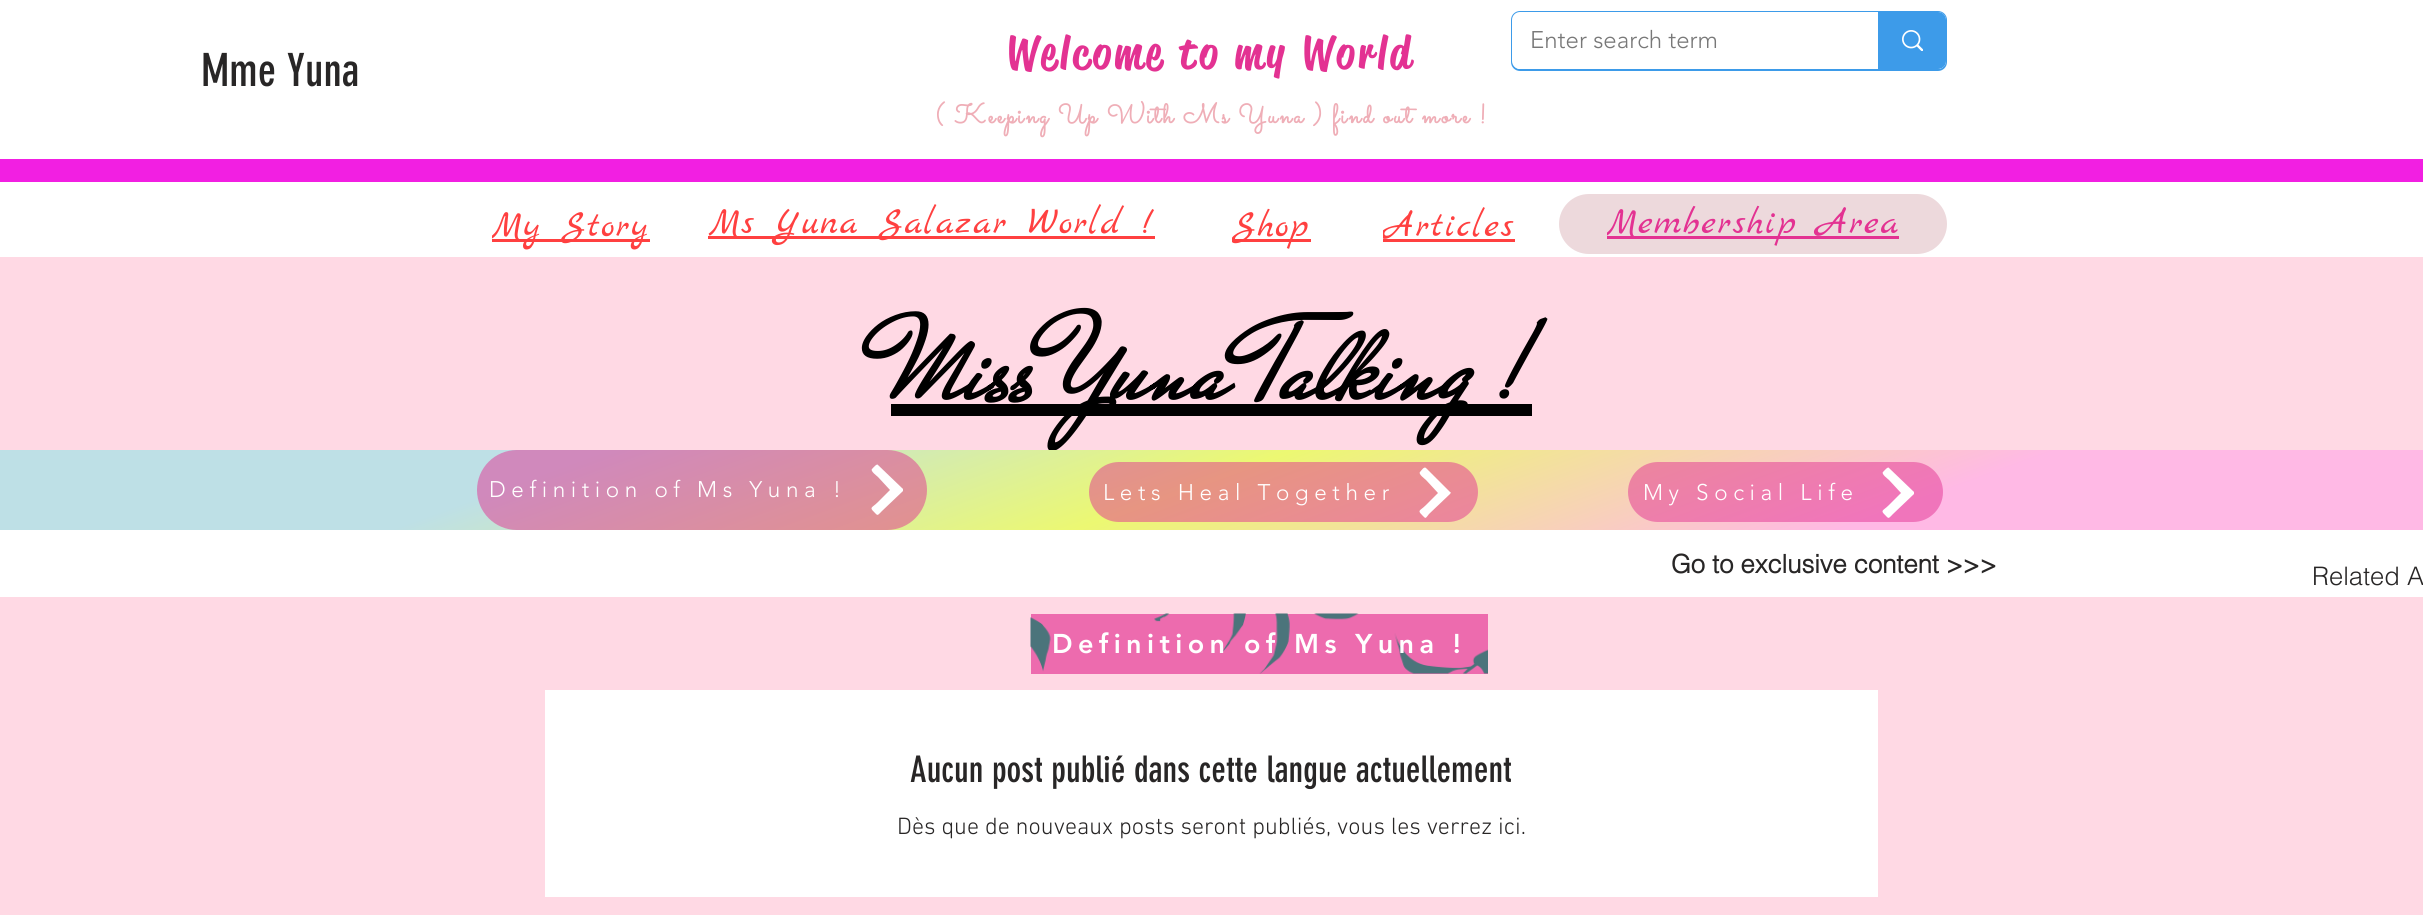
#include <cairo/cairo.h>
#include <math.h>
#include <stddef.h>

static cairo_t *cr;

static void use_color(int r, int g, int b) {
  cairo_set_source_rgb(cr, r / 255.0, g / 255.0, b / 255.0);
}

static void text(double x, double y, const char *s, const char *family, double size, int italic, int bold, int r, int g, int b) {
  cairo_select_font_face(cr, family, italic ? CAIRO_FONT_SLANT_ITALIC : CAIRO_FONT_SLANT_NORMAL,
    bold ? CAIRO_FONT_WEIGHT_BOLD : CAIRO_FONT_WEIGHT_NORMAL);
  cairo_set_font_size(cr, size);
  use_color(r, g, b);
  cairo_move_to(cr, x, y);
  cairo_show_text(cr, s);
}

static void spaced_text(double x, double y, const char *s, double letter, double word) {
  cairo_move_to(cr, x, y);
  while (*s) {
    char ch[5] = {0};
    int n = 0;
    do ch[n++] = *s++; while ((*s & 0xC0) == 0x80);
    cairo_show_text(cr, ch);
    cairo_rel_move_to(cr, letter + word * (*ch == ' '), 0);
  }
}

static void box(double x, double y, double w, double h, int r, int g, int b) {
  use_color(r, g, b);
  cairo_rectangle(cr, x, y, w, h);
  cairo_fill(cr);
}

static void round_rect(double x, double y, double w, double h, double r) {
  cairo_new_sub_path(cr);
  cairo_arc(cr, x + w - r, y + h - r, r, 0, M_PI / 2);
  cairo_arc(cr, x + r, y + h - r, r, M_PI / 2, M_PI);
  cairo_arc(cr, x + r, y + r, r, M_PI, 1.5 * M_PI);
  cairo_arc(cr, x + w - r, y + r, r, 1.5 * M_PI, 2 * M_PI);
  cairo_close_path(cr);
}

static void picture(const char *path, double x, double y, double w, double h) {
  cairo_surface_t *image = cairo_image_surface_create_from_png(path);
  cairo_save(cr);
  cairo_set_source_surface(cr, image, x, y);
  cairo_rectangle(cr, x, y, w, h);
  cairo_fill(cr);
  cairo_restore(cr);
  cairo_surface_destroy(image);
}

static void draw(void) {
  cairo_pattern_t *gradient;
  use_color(255, 255, 255);
  cairo_paint(cr);
  round_rect(1512, 12, 434, 58, 8);
  use_color(61, 155, 233);
  cairo_stroke(cr);
  use_color(255, 255, 255);
  round_rect(1512, 12, 434, 57, 8);
  cairo_fill(cr);
  use_color(61, 155, 233);
  cairo_new_path(cr);
  cairo_move_to(cr, 1878, 12);
  cairo_line_to(cr, 1938, 12);
  cairo_curve_to(cr, 1942.5, 12, 1946, 15.5, 1946, 20);
  cairo_line_to(cr, 1946, 61);
  cairo_curve_to(cr, 1946, 65.5, 1942.5, 69, 1938, 69);
  cairo_line_to(cr, 1878, 69);
  cairo_close_path(cr);
  cairo_fill(cr);
  picture("img_01.png", 1902, 30, 21, 21);
  box(0, 159, 2423, 23, 242, 31, 226);
  box(492, 239, 158, 3, 255, 64, 64);
  box(708, 236, 447, 3, 255, 64, 64);
  box(1232, 239, 79, 3, 255, 64, 64);
  box(1383, 239, 132, 3, 255, 64, 64);
  use_color(237, 217, 220);
  round_rect(1559, 194, 388, 60, 30);
  cairo_fill(cr);
  box(1607, 236, 292, 3, 227, 50, 146);
  box(0, 257, 2423, 193, 255, 217, 228);
  box(891, 404, 641, 12, 0, 0, 0);
  box(0, 597, 2423, 318, 255, 217, 228);
  box(1031, 614, 457, 60, 237, 107, 174);
  picture("img_02.png", 1030, 613, 458, 61);
  box(545, 690, 1333, 207, 255, 255, 255);
  text(201, 86, "Mme Yuna", "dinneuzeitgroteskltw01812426", 45, 0, 0, 40, 38, 38);
  cairo_select_font_face(cr, "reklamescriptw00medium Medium", CAIRO_FONT_SLANT_NORMAL, CAIRO_FONT_WEIGHT_NORMAL);
  use_color(227, 50, 146);
  spaced_text(1006, 68, "Welcome to my World", 3.6, 0);
  cairo_select_font_face(cr, "Sacramento", CAIRO_FONT_SLANT_NORMAL, CAIRO_FONT_WEIGHT_BOLD);
  cairo_set_font_size(cr, 27);
  use_color(239, 174, 183);
  spaced_text(935, 123, "( Keeping Up With Ms Yuna ) find out more !", 2.15, 0);
  text(1530, 48, "Enter search term", "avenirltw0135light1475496 Light", 24, 0, 0, 120, 120, 120);
  cairo_save(cr);
  cairo_rectangle(cr, 492, 203, 158, 48);
  cairo_clip(cr);
  cairo_select_font_face(cr, "Marck Script", CAIRO_FONT_SLANT_NORMAL, CAIRO_FONT_WEIGHT_NORMAL);
  cairo_set_font_size(cr, 37.5);
  use_color(255, 64, 64);
  spaced_text(491, 236, "My Story", 1.9, 0);
  cairo_restore(cr);
  cairo_select_font_face(cr, "Marck Script", CAIRO_FONT_SLANT_NORMAL, CAIRO_FONT_WEIGHT_NORMAL);
  cairo_set_font_size(cr, 37.5);
  use_color(255, 64, 64);
  spaced_text(709, 233, "Ms Yuna Salazar World !", 1.9, 0);
  cairo_save(cr);
  cairo_rectangle(cr, 1232, 203, 79, 48);
  cairo_clip(cr);
  spaced_text(1232, 236, "Shop", 1.9, 0);
  cairo_restore(cr);
  cairo_save(cr);
  cairo_rectangle(cr, 1383, 203, 132, 48);
  cairo_clip(cr);
  spaced_text(1384, 236, "Articles", 1.9, 0);
  cairo_restore(cr);
  cairo_save(cr);
  cairo_rectangle(cr, 1607, 200, 292, 48);
  cairo_clip(cr);
  use_color(227, 50, 146);
  spaced_text(1606, 233, "Membership Area", 1.9, 0);
  cairo_restore(cr);
  text(891, 398, "Miss Yuna Talking !", "Mr De Haviland", 120, 0, 1, 0, 0, 0);
  gradient = cairo_pattern_create_linear(1367, 914, 1057, 65);
  cairo_pattern_add_color_stop_rgba(gradient, 0.22, 1, 0.725, 0.898, 1);
  cairo_pattern_add_color_stop_rgba(gradient, 0.51, 0.925, 0.973, 0.447, 1);
  cairo_pattern_add_color_stop_rgba(gradient, 0.77, 0.745, 0.878, 0.902, 1);
  cairo_set_source(cr, gradient);
  cairo_pattern_destroy(gradient);
  cairo_rectangle(cr, 0, 450, 2423, 80);
  cairo_fill(cr);
  cairo_set_source_rgba(cr, 0.89, 0.196, 0.573, 0.5);
  round_rect(477, 450, 450, 80, 40);
  cairo_fill(cr);
  cairo_select_font_face(cr, "avenirltw0135light1475496 Light", CAIRO_FONT_SLANT_NORMAL, CAIRO_FONT_WEIGHT_NORMAL);
  cairo_set_font_size(cr, 22.5);
  use_color(255, 255, 255);
  spaced_text(489, 497, "Definition of Ms Yuna !", 5.6, 0);
  cairo_new_path(cr);
  cairo_move_to(cr, 903, 489);
  cairo_line_to(cr, 878, 465);
  cairo_curve_to(cr, 877, 463, 873, 468, 872, 469);
  cairo_curve_to(cr, 870, 471, 877, 476, 878, 477);
  cairo_line_to(cr, 890, 490);
  cairo_line_to(cr, 878, 502);
  cairo_curve_to(cr, 872, 508, 869, 507, 874, 512);
  cairo_curve_to(cr, 878, 516, 877, 516, 882, 511);
  cairo_line_to(cr, 903, 491);
  cairo_curve_to(cr, 903, 490, 903, 489, 903, 489);
  cairo_close_path(cr);
  cairo_fill(cr);
  cairo_set_source_rgba(cr, 0.89, 0.196, 0.573, 0.5);
  round_rect(1089, 462, 389, 60, 30);
  cairo_fill(cr);
  use_color(255, 255, 255);
  spaced_text(1103, 500, "Lets Heal Together", 5.6, 0);
  cairo_new_path(cr);
  cairo_move_to(cr, 1450, 492);
  cairo_line_to(cr, 1426, 468);
  cairo_curve_to(cr, 1424, 466, 1421, 471, 1420, 472);
  cairo_curve_to(cr, 1418, 474, 1425, 479, 1426, 480);
  cairo_line_to(cr, 1438, 493);
  cairo_line_to(cr, 1426, 505);
  cairo_curve_to(cr, 1420, 511, 1417, 510, 1422, 515);
  cairo_curve_to(cr, 1426, 519, 1425, 519, 1429, 514);
  cairo_line_to(cr, 1450, 494);
  cairo_curve_to(cr, 1451, 493, 1451, 492, 1450, 492);
  cairo_close_path(cr);
  cairo_fill(cr);
  cairo_set_source_rgba(cr, 0.89, 0.196, 0.573, 0.5);
  round_rect(1628, 462, 315, 60, 30);
  cairo_fill(cr);
  use_color(255, 255, 255);
  spaced_text(1643, 500, "My Social Life", 5.6, 0);
  cairo_new_path(cr);
  cairo_move_to(cr, 1914, 492);
  cairo_line_to(cr, 1889, 468);
  cairo_curve_to(cr, 1888, 466, 1884, 471, 1883, 472);
  cairo_curve_to(cr, 1881, 474, 1888, 479, 1889, 480);
  cairo_line_to(cr, 1901, 493);
  cairo_line_to(cr, 1889, 505);
  cairo_curve_to(cr, 1883, 511, 1880, 510, 1885, 515);
  cairo_curve_to(cr, 1889, 519, 1888, 519, 1893, 514);
  cairo_line_to(cr, 1914, 494);
  cairo_curve_to(cr, 1914, 493, 1914, 492, 1914, 492);
  cairo_close_path(cr);
  cairo_fill(cr);
  text(1671, 573, "Go to exclusive content >>>", "helvetica", 25.5, 0, 1, 40, 38, 38);
  text(2312, 585, "Related A", "helvetica Light", 25.5, 0, 0, 40, 38, 38);
  cairo_select_font_face(cr, "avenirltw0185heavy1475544 Black", CAIRO_FONT_SLANT_NORMAL, CAIRO_FONT_WEIGHT_NORMAL);
  cairo_set_font_size(cr, 27);
  use_color(255, 255, 255);
  spaced_text(1052, 653, "Definition of Ms Yuna !", 5.4, 0);
  text(910, 782, "Aucun post publié dans cette langue actuellement", "dinneuzeitgroteskltw01812426", 36, 0, 0, 40, 38, 38);
  text(897, 834, "Dès que de nouveaux posts seront publiés, vous les verrez ici.", "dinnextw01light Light", 24, 0, 0, 40, 38, 38);
}

int main(void) {
  cairo_surface_t *surface = cairo_image_surface_create(CAIRO_FORMAT_RGB24, 2423, 915);
  cr = cairo_create(surface);
  cairo_font_options_t *options = cairo_font_options_create();
  cairo_font_options_set_hint_metrics(options, CAIRO_HINT_METRICS_OFF);
  cairo_font_options_set_hint_style(options, CAIRO_HINT_STYLE_NONE);
  cairo_set_font_options(cr, options);
  cairo_set_miter_limit(cr, 4);
  draw();
  cairo_surface_write_to_png(surface, "out.png");
  cairo_font_options_destroy(options);
  cairo_destroy(cr);
  cairo_surface_destroy(surface);
  return 0;
}
